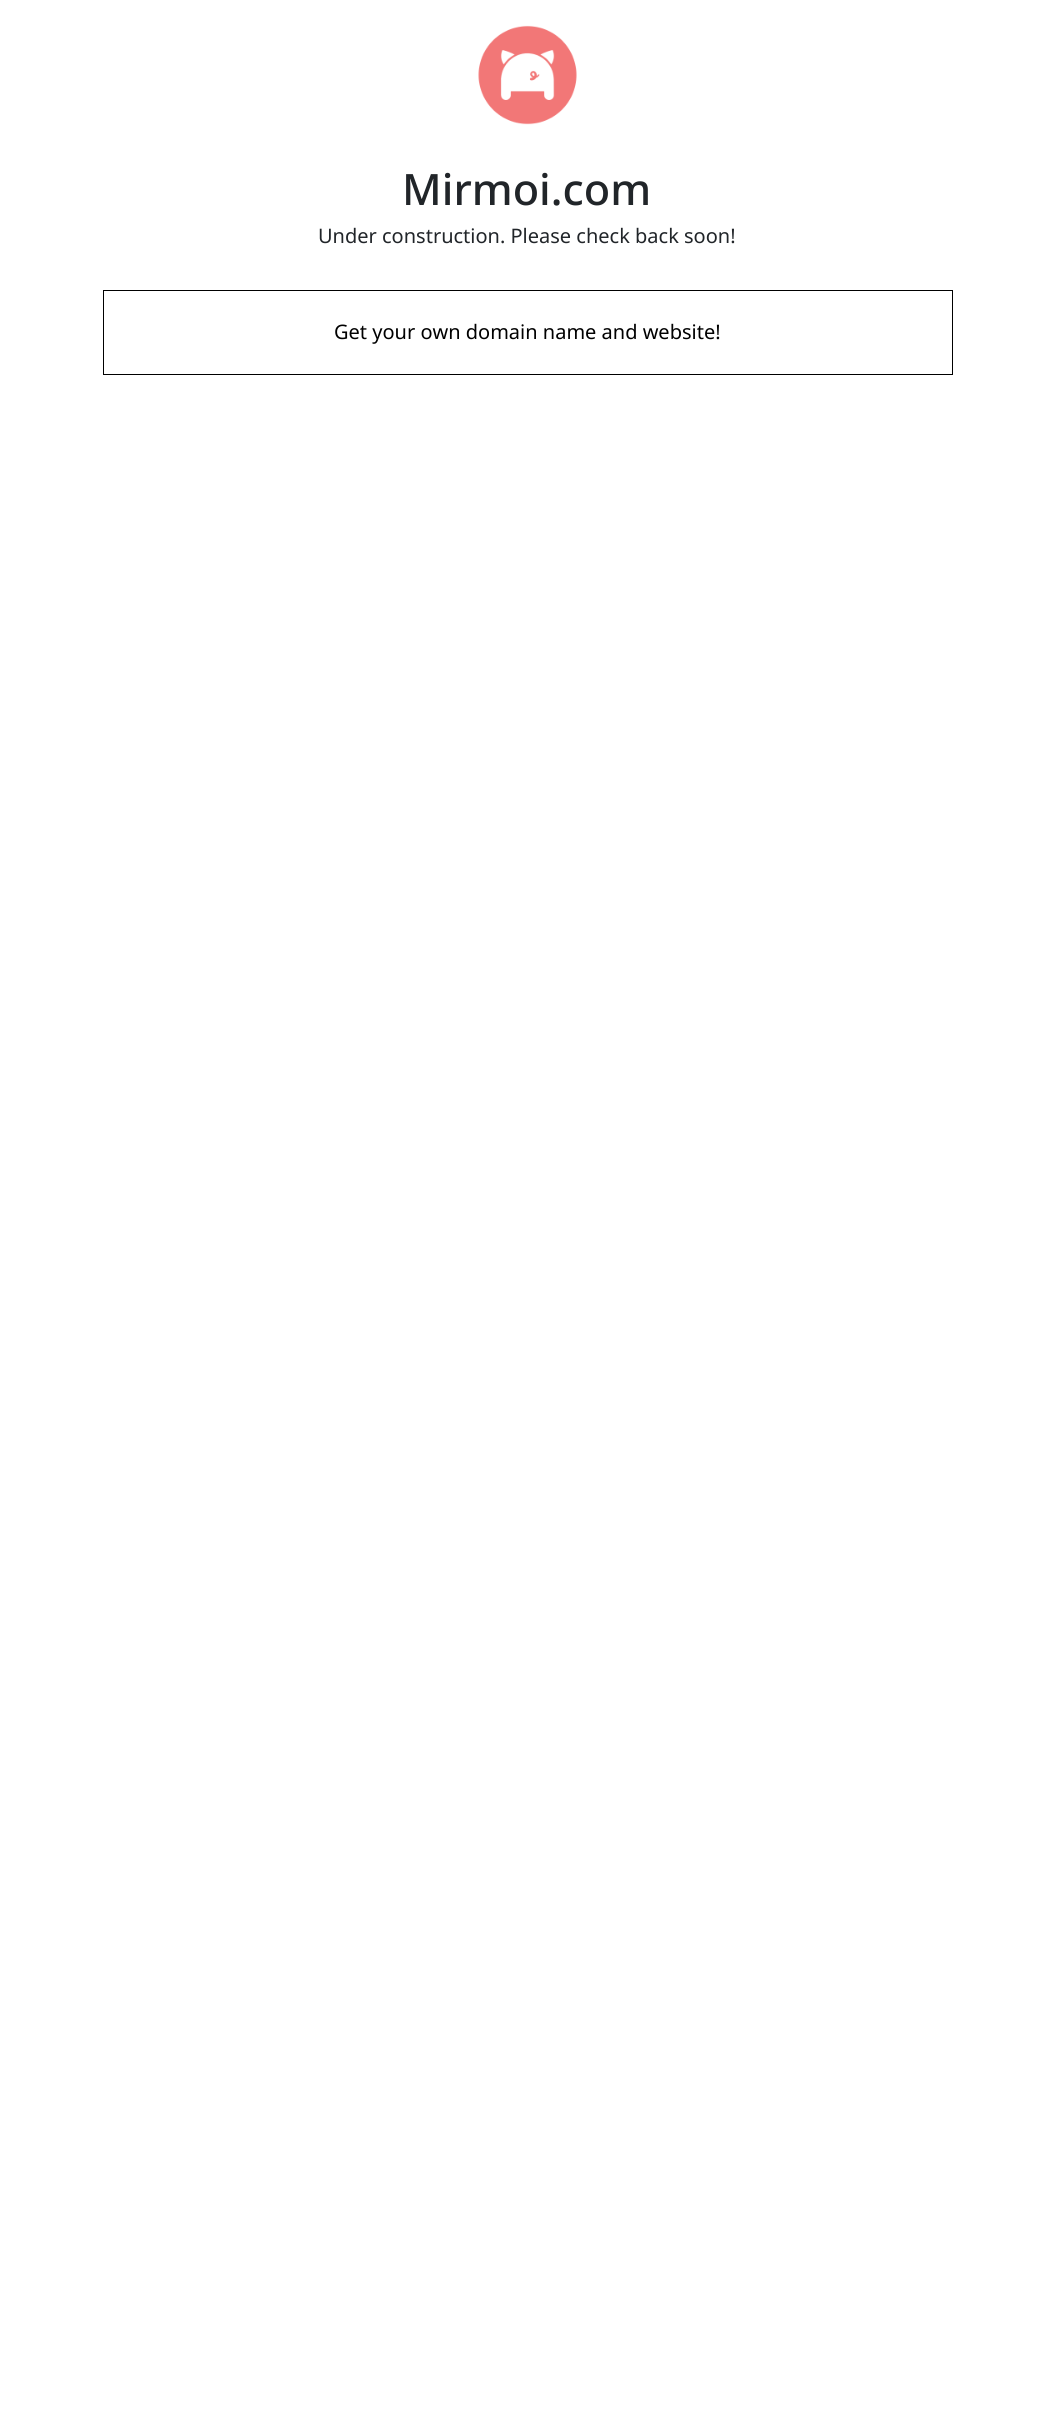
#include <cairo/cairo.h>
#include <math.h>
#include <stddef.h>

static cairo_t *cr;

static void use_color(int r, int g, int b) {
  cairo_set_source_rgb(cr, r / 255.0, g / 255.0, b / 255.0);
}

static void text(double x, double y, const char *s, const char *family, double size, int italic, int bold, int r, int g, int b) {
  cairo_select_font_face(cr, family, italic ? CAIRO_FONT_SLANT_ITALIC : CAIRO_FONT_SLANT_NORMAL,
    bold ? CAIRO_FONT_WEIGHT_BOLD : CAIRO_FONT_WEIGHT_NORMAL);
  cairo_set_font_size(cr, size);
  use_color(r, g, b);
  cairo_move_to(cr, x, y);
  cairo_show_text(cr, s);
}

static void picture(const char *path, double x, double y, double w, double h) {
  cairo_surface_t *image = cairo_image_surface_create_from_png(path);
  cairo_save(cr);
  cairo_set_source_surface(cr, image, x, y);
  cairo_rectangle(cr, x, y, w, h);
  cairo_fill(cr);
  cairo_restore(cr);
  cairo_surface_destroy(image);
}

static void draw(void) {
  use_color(255, 255, 255);
  cairo_paint(cr);
  picture("img_01.png", 478, 25, 99, 100);
  cairo_rectangle(cr, 103.5, 290.5, 849, 84);
  use_color(0, 0, 0);
  cairo_set_line_width(cr, 1);
  cairo_stroke(cr);
  text(402, 205, "Mirmoi.com", "Noto Sans Medium", 43.25, 0, 0, 33, 37, 41);
  text(318, 243, "Under construction. Please check back soon!", "Noto Sans", 20, 0, 0, 33, 37, 41);
  text(334, 339, "Get your own domain name and website!", "Noto Sans", 20, 0, 0, 0, 0, 0);
}

int main(void) {
  cairo_surface_t *surface = cairo_image_surface_create(CAIRO_FORMAT_RGB24, 1053, 2416);
  cr = cairo_create(surface);
  cairo_font_options_t *options = cairo_font_options_create();
  cairo_font_options_set_hint_metrics(options, CAIRO_HINT_METRICS_OFF);
  cairo_font_options_set_hint_style(options, CAIRO_HINT_STYLE_NONE);
  cairo_set_font_options(cr, options);
  cairo_set_miter_limit(cr, 4);
  draw();
  cairo_surface_write_to_png(surface, "out.png");
  cairo_font_options_destroy(options);
  cairo_destroy(cr);
  cairo_surface_destroy(surface);
  return 0;
}
